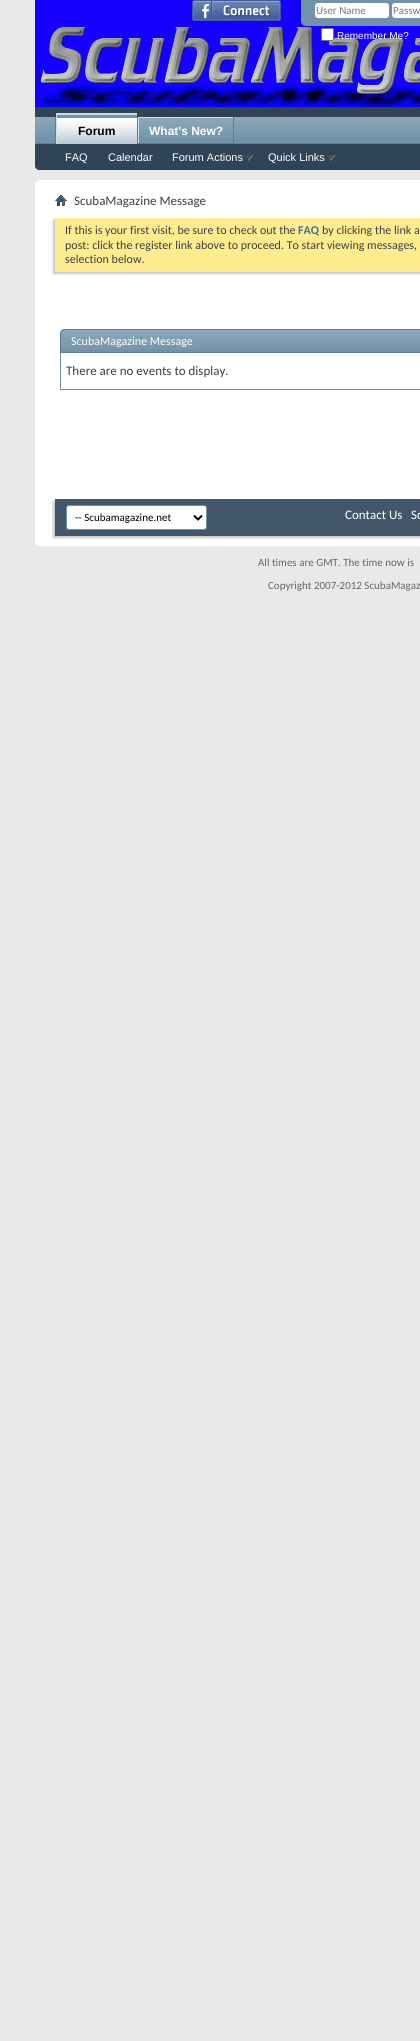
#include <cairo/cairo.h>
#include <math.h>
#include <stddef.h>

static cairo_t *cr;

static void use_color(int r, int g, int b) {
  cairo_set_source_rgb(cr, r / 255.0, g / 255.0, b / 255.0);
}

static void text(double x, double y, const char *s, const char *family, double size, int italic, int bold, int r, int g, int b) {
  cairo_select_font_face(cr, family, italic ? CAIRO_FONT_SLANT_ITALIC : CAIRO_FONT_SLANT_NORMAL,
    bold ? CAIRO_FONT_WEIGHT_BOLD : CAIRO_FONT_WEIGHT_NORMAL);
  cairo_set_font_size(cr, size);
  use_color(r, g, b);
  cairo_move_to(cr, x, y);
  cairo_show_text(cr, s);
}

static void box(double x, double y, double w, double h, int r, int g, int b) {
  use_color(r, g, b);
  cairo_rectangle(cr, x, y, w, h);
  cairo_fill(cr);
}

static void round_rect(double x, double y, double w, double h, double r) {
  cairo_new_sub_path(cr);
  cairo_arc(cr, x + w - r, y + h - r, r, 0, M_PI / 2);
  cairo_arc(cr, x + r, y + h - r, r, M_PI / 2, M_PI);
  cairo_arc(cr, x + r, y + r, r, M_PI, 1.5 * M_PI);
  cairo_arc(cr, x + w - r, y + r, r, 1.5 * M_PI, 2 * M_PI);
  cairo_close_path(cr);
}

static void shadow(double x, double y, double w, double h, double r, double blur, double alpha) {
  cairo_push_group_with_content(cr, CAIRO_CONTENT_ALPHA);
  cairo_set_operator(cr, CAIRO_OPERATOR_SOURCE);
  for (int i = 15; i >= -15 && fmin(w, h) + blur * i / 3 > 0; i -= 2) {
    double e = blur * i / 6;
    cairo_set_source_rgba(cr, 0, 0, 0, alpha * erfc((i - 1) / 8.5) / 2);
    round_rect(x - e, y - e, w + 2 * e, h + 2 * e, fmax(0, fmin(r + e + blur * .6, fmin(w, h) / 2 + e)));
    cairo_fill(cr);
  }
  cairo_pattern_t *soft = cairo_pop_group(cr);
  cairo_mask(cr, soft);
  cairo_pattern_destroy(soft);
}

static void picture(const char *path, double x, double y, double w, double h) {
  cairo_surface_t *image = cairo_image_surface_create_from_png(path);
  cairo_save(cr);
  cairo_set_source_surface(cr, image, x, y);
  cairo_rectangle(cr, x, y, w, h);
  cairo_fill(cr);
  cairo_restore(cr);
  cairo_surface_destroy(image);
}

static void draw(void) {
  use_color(233, 233, 233);
  cairo_paint(cr);
  use_color(47, 68, 86);
  cairo_new_path(cr);
  cairo_move_to(cr, 35, 0);
  cairo_line_to(cr, 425, 0);
  cairo_line_to(cr, 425, 165);
  cairo_curve_to(cr, 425, 168, 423, 170, 420, 170);
  cairo_line_to(cr, 40, 170);
  cairo_curve_to(cr, 37, 170, 35, 168, 35, 165);
  cairo_close_path(cr);
  cairo_fill(cr);
  picture("img_01.png", 35, 0, 385, 107);
  picture("img_02.png", 192, 0, 89, 21);
  use_color(113, 146, 168);
  cairo_new_path(cr);
  cairo_move_to(cr, 301, 0);
  cairo_line_to(cr, 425, 0);
  cairo_line_to(cr, 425, 21);
  cairo_curve_to(cr, 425, 24, 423, 26, 420, 26);
  cairo_line_to(cr, 306, 26);
  cairo_curve_to(cr, 303, 26, 301, 24, 301, 21);
  cairo_close_path(cr);
  cairo_fill(cr);
  use_color(255, 255, 255);
  round_rect(315, 3, 74, 15, 3);
  cairo_fill(cr);
  round_rect(392, 3, 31, 15, 3);
  cairo_fill(cr);
  round_rect(321.5, 28.5, 12, 12, 1.5);
  cairo_fill_preserve(cr);
  use_color(118, 118, 118);
  cairo_set_line_width(cr, 1);
  cairo_stroke(cr);
  use_color(47, 68, 86);
  cairo_new_path(cr);
  cairo_move_to(cr, 35, 117);
  cairo_line_to(cr, 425, 117);
  cairo_line_to(cr, 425, 165);
  cairo_curve_to(cr, 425, 168, 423, 170, 420, 170);
  cairo_line_to(cr, 40, 170);
  cairo_curve_to(cr, 37, 170, 35, 168, 35, 165);
  cairo_close_path(cr);
  cairo_fill(cr);
  box(35, 117, 385, 26, 113, 146, 168);
  picture("img_03.png", 35, 117, 385, 20);
  box(137, 117, 1, 26, 90, 127, 151);
  box(55, 117, 1, 26, 90, 127, 151);
  box(233, 117, 1, 27, 90, 127, 151);
  box(138, 117, 95, 1, 206, 223, 235);
  box(138, 117, 1, 27, 206, 223, 235);
  box(35, 143, 385, 1, 90, 127, 151);
  box(57, 114, 80, 30, 113, 146, 168);
  picture("img_04.png", 57, 114, 80, 30);
  box(56, 113, 81, 1, 206, 223, 235);
  box(56, 113, 1, 31, 206, 223, 235);
  picture("img_05.png", 244, 155, 9, 6);
  picture("img_05.png", 326, 155, 9, 6);
  box(139, 118, 94, 19, 113, 146, 168);
  picture("img_06.png", 139, 118, 94, 20);
  use_color(255, 255, 255);
  round_rect(35, 180, 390, 366, 5);
  cairo_fill(cr);
  picture("img_07.png", 55, 195, 12, 11);
  use_color(200, 200, 200);
  shadow(53, 220, 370, 54, 0, 1, 1);
  box(55, 218, 365, 54, 255, 235, 144);
  use_color(113, 146, 168);
  cairo_new_path(cr);
  cairo_move_to(cr, 65, 329);
  cairo_line_to(cr, 420, 329);
  cairo_curve_to(cr, 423, 329, 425, 331, 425, 334);
  cairo_line_to(cr, 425, 353);
  cairo_line_to(cr, 60, 353);
  cairo_line_to(cr, 60, 334);
  cairo_curve_to(cr, 60, 331, 62, 329, 65, 329);
  cairo_close_path(cr);
  cairo_fill(cr);
  picture("img_08.png", 60, 330, 360, 20);
  cairo_new_path(cr);
  cairo_move_to(cr, 65, 329.5);
  cairo_line_to(cr, 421, 329.5);
  cairo_curve_to(cr, 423.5, 329.5, 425.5, 331.5, 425.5, 334);
  cairo_line_to(cr, 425.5, 352.5);
  cairo_line_to(cr, 60.5, 352.5);
  cairo_line_to(cr, 60.5, 334);
  cairo_curve_to(cr, 60.5, 331.5, 62.5, 329.5, 65, 329.5);
  cairo_close_path(cr);
  use_color(90, 127, 151);
  cairo_stroke(cr);
  box(60, 389, 360, 1, 107, 145, 171);
  box(60, 353, 1, 37, 107, 145, 171);
  use_color(200, 200, 200);
  shadow(53, 501, 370, 37, 0, 1, 1);
  box(55, 499, 365, 37, 66, 87, 105);
  use_color(255, 255, 255);
  round_rect(66.5, 505.5, 140, 24, 2.5);
  cairo_fill_preserve(cr);
  use_color(107, 145, 171);
  cairo_stroke(cr);
  cairo_new_path(cr);
  cairo_move_to(cr, 194, 515.5);
  cairo_line_to(cr, 198, 519.5);
  cairo_line_to(cr, 202, 515.5);
  use_color(0, 0, 0);
  cairo_set_line_width(cr, 2);
  cairo_stroke(cr);
  text(316, 14, "User Name", "Carlito", 11, 0, 0, 119, 119, 119);
  text(393, 14, "Passw", "Carlito", 11, 0, 0, 119, 119, 119);
  text(337, 39, "Remember Me?", "Liberation Sans", 10, 0, 0, 255, 255, 255);
  text(78, 135, "Forum", "Liberation Sans", 12, 0, 1, 0, 0, 0);
  text(65, 161, "FAQ", "Liberation Sans", 11, 0, 0, 255, 255, 255);
  text(108, 161, "Calendar", "Liberation Sans", 11, 0, 0, 255, 255, 255);
  text(172, 161, "Forum Actions", "Liberation Sans", 11, 0, 0, 255, 255, 255);
  text(268, 161, "Quick Links", "Liberation Sans", 11, 0, 0, 255, 255, 255);
  text(149, 135, "What's New?", "Liberation Sans", 12, 0, 1, 255, 255, 255);
  text(74, 205, "ScubaMagazine Message", "Carlito", 13, 0, 0, 62, 62, 62);
  text(65, 234, "If this is your first visit, be sure to check out the", "Carlito", 12, 0, 0, 62, 62, 62);
  text(298, 234, "FAQ", "Carlito", 12, 0, 1, 65, 115, 148);
  text(322, 234, "by clicking the link a", "Carlito", 12, 0, 0, 62, 62, 62);
  text(65, 249, "post: click the register link above to proceed. To start viewing messages,", "Carlito", 12, 0, 0, 62, 62, 62);
  text(65, 263, "selection below.", "Carlito", 12, 0, 0, 62, 62, 62);
  text(71, 345, "ScubaMagazine Message", "Carlito", 12, 0, 0, 255, 255, 255);
  text(66, 375, "There are no events to display.", "Carlito", 13, 0, 0, 62, 62, 62);
  text(75, 521, "-- Scubamagazine.net", "Carlito", 11, 0, 0, 0, 0, 0);
  text(345, 519, "Contact Us", "Carlito", 13, 0, 0, 255, 255, 255);
  text(411, 519, "Sc", "Carlito", 13, 0, 0, 255, 255, 255);
  text(258, 566, "All times are GMT. The time now is", "Carlito", 11, 0, 0, 102, 102, 102);
  text(268, 589, "Copyright 2007-2012 ScubaMagaz", "Carlito", 11, 0, 0, 102, 102, 102);
}

int main(void) {
  cairo_surface_t *surface = cairo_image_surface_create(CAIRO_FORMAT_RGB24, 420, 2041);
  cr = cairo_create(surface);
  cairo_font_options_t *options = cairo_font_options_create();
  cairo_font_options_set_hint_metrics(options, CAIRO_HINT_METRICS_OFF);
  cairo_font_options_set_hint_style(options, CAIRO_HINT_STYLE_NONE);
  cairo_set_font_options(cr, options);
  cairo_set_miter_limit(cr, 4);
  draw();
  cairo_surface_write_to_png(surface, "out.png");
  cairo_font_options_destroy(options);
  cairo_destroy(cr);
  cairo_surface_destroy(surface);
  return 0;
}
